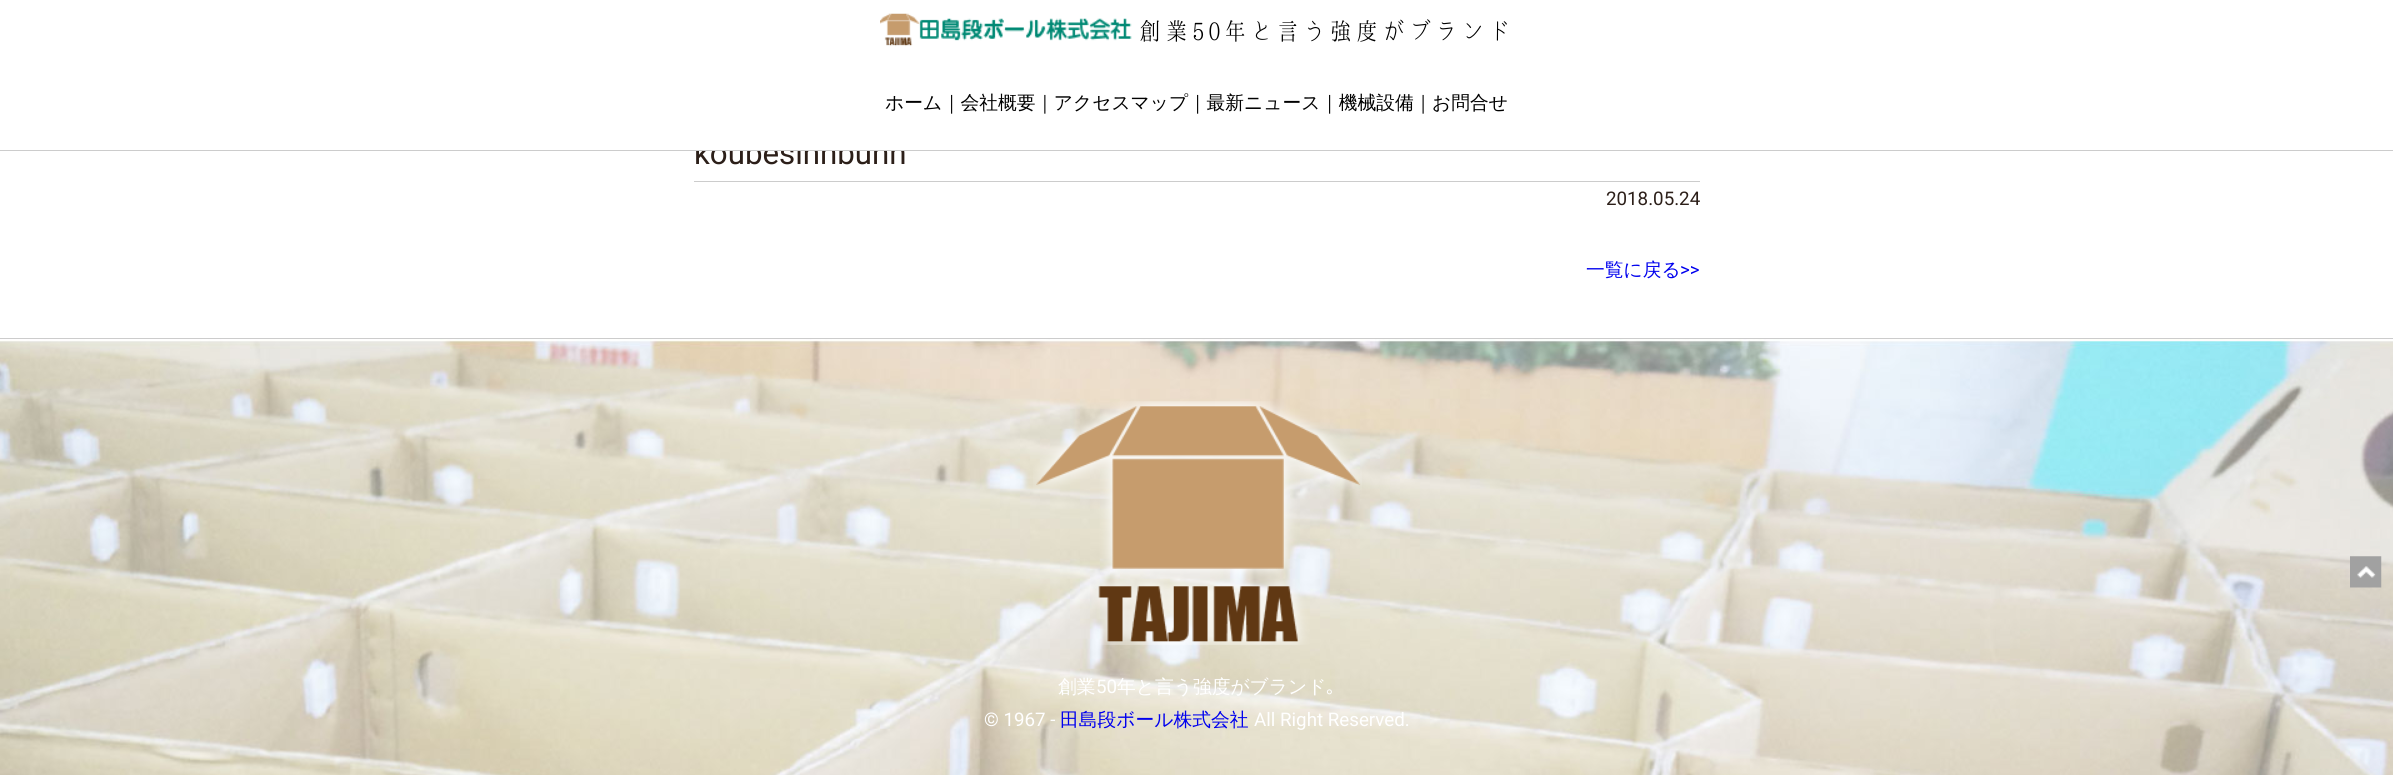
#include <cairo/cairo.h>
#include <math.h>
#include <stddef.h>

static cairo_t *cr;

static void use_color(int r, int g, int b) {
  cairo_set_source_rgb(cr, r / 255.0, g / 255.0, b / 255.0);
}

static void text(double x, double y, const char *s, const char *family, double size, int italic, int bold, int r, int g, int b) {
  cairo_select_font_face(cr, family, italic ? CAIRO_FONT_SLANT_ITALIC : CAIRO_FONT_SLANT_NORMAL,
    bold ? CAIRO_FONT_WEIGHT_BOLD : CAIRO_FONT_WEIGHT_NORMAL);
  cairo_set_font_size(cr, size);
  use_color(r, g, b);
  cairo_move_to(cr, x, y);
  cairo_show_text(cr, s);
}

static void spaced_text(double x, double y, const char *s, double letter, double word) {
  cairo_move_to(cr, x, y);
  while (*s) {
    char ch[5] = {0};
    int n = 0;
    do ch[n++] = *s++; while ((*s & 0xC0) == 0x80);
    cairo_show_text(cr, ch);
    cairo_rel_move_to(cr, letter + word * (*ch == ' '), 0);
  }
}

static void box(double x, double y, double w, double h, int r, int g, int b) {
  use_color(r, g, b);
  cairo_rectangle(cr, x, y, w, h);
  cairo_fill(cr);
}

static void picture(const char *path, double x, double y, double w, double h) {
  cairo_surface_t *image = cairo_image_surface_create_from_png(path);
  cairo_save(cr);
  cairo_set_source_surface(cr, image, x, y);
  cairo_rectangle(cr, x, y, w, h);
  cairo_fill(cr);
  cairo_restore(cr);
  cairo_surface_destroy(image);
}

static void draw(void) {
  use_color(255, 255, 255);
  cairo_paint(cr);
  picture("img_01.png", 880, 13, 252, 34);
  box(694, 181, 1006, 1, 204, 204, 204);
  picture("img_02.png", 0, 339, 2393, 436);
  box(0, 338, 2393, 1, 204, 204, 204);
  picture("img_03.png", 1033, 401, 329, 244);
  picture("img_04.png", 2350, 556, 32, 32);
  cairo_select_font_face(cr, "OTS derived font", CAIRO_FONT_SLANT_NORMAL, CAIRO_FONT_WEIGHT_NORMAL);
  cairo_set_font_size(cr, 24);
  use_color(0, 0, 0);
  spaced_text(1138, 40, "創業50年と言う強度がブランド", 2.4, 0);
  text(885, 109, "ホーム｜会社概要｜アクセスマップ｜最新ニュース｜機械設備｜お問合せ", "WenQuanYi Zen Hei Medium", 18.75, 0, 0, 0, 0, 0);
  text(694, 164, "koubesinnbunn", "Roboto", 31.25, 0, 0, 44, 31, 25);
  box(0, 150, 2393, 1, 204, 204, 204);
  box(695, 140, 209, 10, 255, 255, 255);
  text(1606, 205, "2018.05.24", "Roboto", 18.75, 0, 0, 44, 31, 25);
  text(1586, 276, "一覧に戻る", "WenQuanYi Zen Hei Medium", 18.75, 0, 0, 0, 0, 238);
  text(1680, 276, ">>", "Roboto", 18.75, 0, 0, 0, 0, 238);
  text(1058, 693, "創業", "WenQuanYi Zen Hei Medium", 18.75, 0, 0, 255, 255, 255);
  text(1096, 693, "50", "Roboto", 18.75, 0, 0, 255, 255, 255);
  text(1117, 693, "年と言う強度がブランド", "WenQuanYi Zen Hei Medium", 18.75, 0, 0, 255, 255, 255);
  text(1326, 693, "｡", "IPAPGothic", 18.75, 0, 0, 255, 255, 255);
  text(984, 726, "© 1967 -", "Roboto", 18.75, 0, 0, 255, 255, 255);
  text(1060, 726, "田島段ボール株式会社", "WenQuanYi Zen Hei Medium", 18.75, 0, 0, 0, 0, 238);
  text(1254, 726, "All Right Reserved.", "Roboto", 18.75, 0, 0, 255, 255, 255);
}

int main(void) {
  cairo_surface_t *surface = cairo_image_surface_create(CAIRO_FORMAT_RGB24, 2393, 775);
  cr = cairo_create(surface);
  cairo_font_options_t *options = cairo_font_options_create();
  cairo_font_options_set_hint_metrics(options, CAIRO_HINT_METRICS_OFF);
  cairo_font_options_set_hint_style(options, CAIRO_HINT_STYLE_NONE);
  cairo_set_font_options(cr, options);
  cairo_set_miter_limit(cr, 4);
  draw();
  cairo_surface_write_to_png(surface, "out.png");
  cairo_font_options_destroy(options);
  cairo_destroy(cr);
  cairo_surface_destroy(surface);
  return 0;
}
